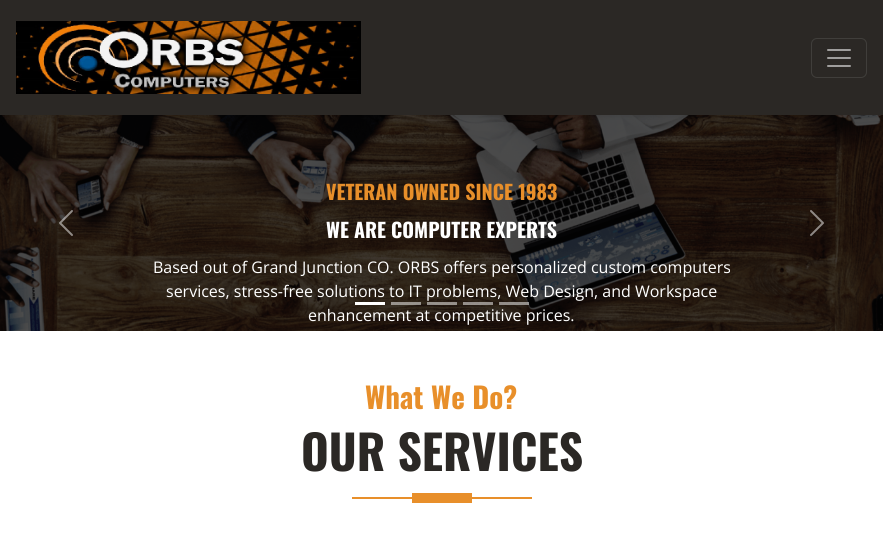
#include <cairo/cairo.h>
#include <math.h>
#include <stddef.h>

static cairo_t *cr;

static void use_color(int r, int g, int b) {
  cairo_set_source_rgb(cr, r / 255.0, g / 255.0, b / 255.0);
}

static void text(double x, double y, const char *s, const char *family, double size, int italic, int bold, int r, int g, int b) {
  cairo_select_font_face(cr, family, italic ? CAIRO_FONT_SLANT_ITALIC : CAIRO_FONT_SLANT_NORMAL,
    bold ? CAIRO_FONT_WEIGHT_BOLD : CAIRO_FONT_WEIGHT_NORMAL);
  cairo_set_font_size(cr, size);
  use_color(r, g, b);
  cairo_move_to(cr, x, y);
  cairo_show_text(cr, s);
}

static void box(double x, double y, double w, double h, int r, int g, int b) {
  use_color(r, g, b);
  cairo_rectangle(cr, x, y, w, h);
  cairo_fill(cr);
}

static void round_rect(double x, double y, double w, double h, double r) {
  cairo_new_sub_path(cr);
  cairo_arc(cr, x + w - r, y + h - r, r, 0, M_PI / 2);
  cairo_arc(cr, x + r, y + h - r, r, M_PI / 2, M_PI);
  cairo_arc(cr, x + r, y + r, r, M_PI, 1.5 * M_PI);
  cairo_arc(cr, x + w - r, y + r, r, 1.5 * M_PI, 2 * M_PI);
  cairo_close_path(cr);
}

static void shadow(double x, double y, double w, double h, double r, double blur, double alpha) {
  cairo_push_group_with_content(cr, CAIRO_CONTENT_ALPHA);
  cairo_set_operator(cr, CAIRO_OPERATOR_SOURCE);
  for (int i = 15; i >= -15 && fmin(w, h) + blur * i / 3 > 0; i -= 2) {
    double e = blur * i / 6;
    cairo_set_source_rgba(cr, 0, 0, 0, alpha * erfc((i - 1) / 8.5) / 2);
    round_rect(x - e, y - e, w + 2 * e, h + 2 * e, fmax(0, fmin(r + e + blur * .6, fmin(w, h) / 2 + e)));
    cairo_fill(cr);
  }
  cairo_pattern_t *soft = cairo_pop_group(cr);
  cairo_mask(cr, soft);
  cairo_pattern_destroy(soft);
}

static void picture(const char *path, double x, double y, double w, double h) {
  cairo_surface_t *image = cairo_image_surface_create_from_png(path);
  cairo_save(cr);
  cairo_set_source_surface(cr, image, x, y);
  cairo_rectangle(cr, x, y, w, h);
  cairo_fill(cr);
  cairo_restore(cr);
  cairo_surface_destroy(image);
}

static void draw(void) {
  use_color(255, 255, 255);
  cairo_paint(cr);
  picture("img_04.png", 0, 115, 883, 216);
  use_color(0, 0, 0);
  shadow(0, 2, 883, 115, 0, 2, 0.07);
  box(0, 0, 883, 115, 43, 40, 37);
  picture("img_01.png", 16, 21, 345, 73);
  round_rect(811.5, 38.5, 55, 39, 5.5);
  use_color(64, 62, 59);
  cairo_set_line_width(cr, 1);
  cairo_stroke(cr);
  picture("img_02.png", 827, 49, 24, 18);
  picture("img_03.png", 59, 210, 14, 26);
  picture("img_05.png", 810, 210, 14, 26);
  box(355, 302, 30, 3, 255, 255, 255);
  cairo_set_source_rgba(cr, 1, 1, 1, 0.5);
  cairo_rectangle(cr, 391, 302, 30, 3);
  cairo_fill(cr);
  cairo_rectangle(cr, 427, 302, 30, 3);
  cairo_fill(cr);
  cairo_rectangle(cr, 463, 302, 30, 3);
  cairo_fill(cr);
  cairo_rectangle(cr, 499, 302, 30, 3);
  cairo_fill(cr);
  box(412, 493, 60, 10, 232, 143, 42);
  box(352, 497, 180, 2, 232, 143, 42);
  text(326, 200, "VETERAN OWNED SINCE 1983", "Oswald", 20, 0, 1, 232, 143, 42);
  text(326, 238, "WE ARE COMPUTER EXPERTS", "Oswald", 20, 0, 1, 255, 255, 255);
  text(153, 273, "Based out of Grand Junction CO. ORBS offers personalized custom computers", "Open Sans", 16, 0, 0, 255, 255, 255);
  text(166, 297, "services, stress-free solutions to IT problems, Web Design, and Workspace", "Open Sans", 16, 0, 0, 255, 255, 255);
  text(308, 321, "enhancement at competitive prices.", "Open Sans", 16, 0, 0, 255, 255, 255);
  text(365, 409, "What We Do?", "Oswald", 29, 0, 1, 232, 143, 42);
  text(301, 471, "OUR SERVICES", "Oswald", 47.5, 0, 1, 43, 40, 37);
}

int main(void) {
  cairo_surface_t *surface = cairo_image_surface_create(CAIRO_FORMAT_RGB24, 883, 539);
  cr = cairo_create(surface);
  cairo_font_options_t *options = cairo_font_options_create();
  cairo_font_options_set_hint_metrics(options, CAIRO_HINT_METRICS_OFF);
  cairo_font_options_set_hint_style(options, CAIRO_HINT_STYLE_NONE);
  cairo_set_font_options(cr, options);
  cairo_set_miter_limit(cr, 4);
  draw();
  cairo_surface_write_to_png(surface, "out.png");
  cairo_font_options_destroy(options);
  cairo_destroy(cr);
  cairo_surface_destroy(surface);
  return 0;
}
